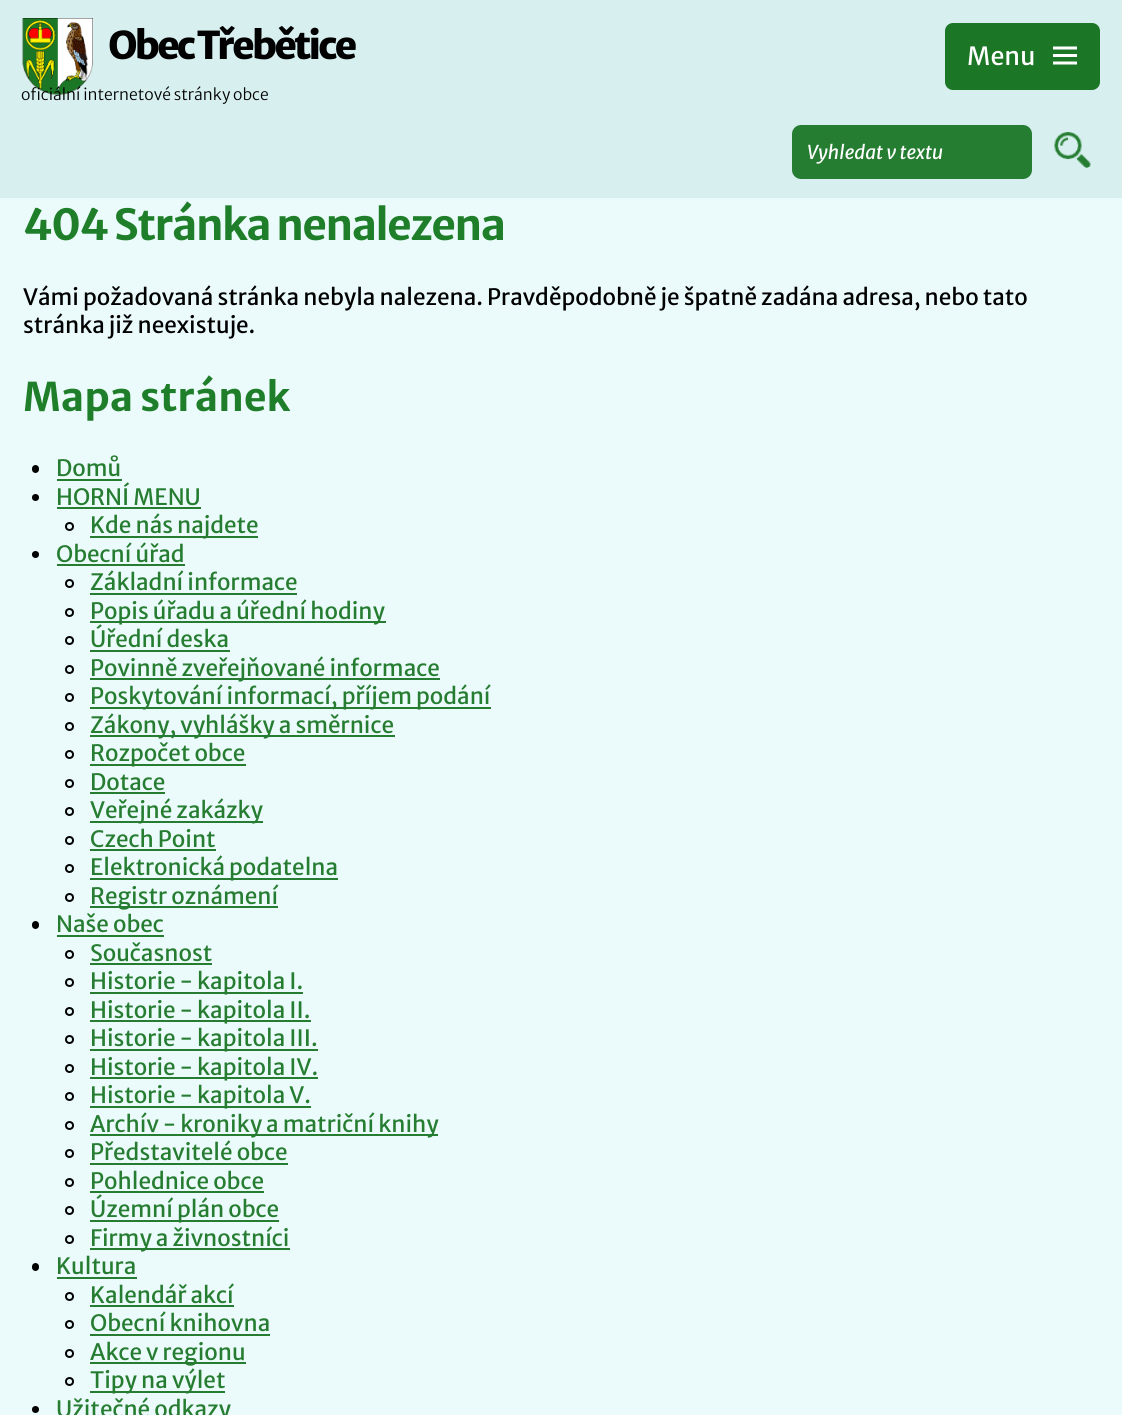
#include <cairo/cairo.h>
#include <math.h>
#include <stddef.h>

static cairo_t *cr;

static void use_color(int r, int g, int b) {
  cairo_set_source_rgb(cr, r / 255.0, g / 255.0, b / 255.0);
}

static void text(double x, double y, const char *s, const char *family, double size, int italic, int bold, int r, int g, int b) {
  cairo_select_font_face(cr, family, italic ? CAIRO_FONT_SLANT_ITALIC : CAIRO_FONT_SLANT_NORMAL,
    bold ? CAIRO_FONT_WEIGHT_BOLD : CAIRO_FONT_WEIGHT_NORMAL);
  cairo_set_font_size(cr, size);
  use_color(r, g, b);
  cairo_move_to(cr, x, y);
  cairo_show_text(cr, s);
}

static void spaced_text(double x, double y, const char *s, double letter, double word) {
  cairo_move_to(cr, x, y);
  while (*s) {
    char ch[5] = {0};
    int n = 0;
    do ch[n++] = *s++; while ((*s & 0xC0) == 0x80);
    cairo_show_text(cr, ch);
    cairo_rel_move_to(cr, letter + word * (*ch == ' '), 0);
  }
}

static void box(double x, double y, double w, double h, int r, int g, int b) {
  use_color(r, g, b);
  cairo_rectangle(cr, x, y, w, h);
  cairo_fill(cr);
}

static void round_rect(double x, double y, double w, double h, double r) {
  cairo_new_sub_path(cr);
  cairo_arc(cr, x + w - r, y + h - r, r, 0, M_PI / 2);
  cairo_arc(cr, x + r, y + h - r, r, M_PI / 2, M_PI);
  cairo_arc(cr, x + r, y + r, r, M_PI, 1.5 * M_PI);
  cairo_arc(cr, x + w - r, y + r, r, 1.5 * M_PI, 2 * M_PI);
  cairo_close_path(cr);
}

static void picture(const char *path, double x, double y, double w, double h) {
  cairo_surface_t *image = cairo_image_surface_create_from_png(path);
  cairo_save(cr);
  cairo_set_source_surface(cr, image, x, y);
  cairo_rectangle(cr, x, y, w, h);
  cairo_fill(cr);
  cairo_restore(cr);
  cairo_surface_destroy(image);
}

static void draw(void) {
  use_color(235, 251, 251);
  cairo_paint(cr);
  box(0, 0, 1122, 198, 215, 239, 239);
  picture("img_01.png", 22, 18, 71, 77);
  use_color(37, 125, 49);
  round_rect(792, 125, 240, 54, 9);
  cairo_fill(cr);
  picture("img_02.png", 1054, 132, 37, 36);
  use_color(27, 118, 38);
  round_rect(945, 23, 155, 67, 8);
  cairo_fill(cr);
  picture("img_03.png", 1053, 46, 24, 19);
  use_color(1, 1, 1);
  round_rect(32, 465, 7, 8, 3.5);
  cairo_fill(cr);
  box(57, 479, 65, 2, 38, 125, 49);
  use_color(1, 1, 1);
  cairo_arc(cr, 35.5, 497.5, 3.5, 0, 2 * M_PI);
  cairo_fill(cr);
  box(57, 507, 144, 2, 38, 125, 49);
  cairo_arc(cr, 69.5, 526.5, 3.5, 0, 2 * M_PI);
  use_color(1, 1, 1);
  cairo_stroke(cr);
  box(90, 536, 168, 2, 38, 125, 49);
  use_color(1, 1, 1);
  cairo_arc(cr, 35.5, 554.5, 3.5, 0, 2 * M_PI);
  cairo_fill(cr);
  box(57, 564, 128, 2, 38, 125, 49);
  cairo_arc(cr, 69.5, 583.5, 3.5, 0, 2 * M_PI);
  use_color(1, 1, 1);
  cairo_stroke(cr);
  box(90, 593, 207, 2, 38, 125, 49);
  cairo_arc(cr, 69.5, 612.5, 3.5, 0, 2 * M_PI);
  use_color(1, 1, 1);
  cairo_stroke(cr);
  box(90, 621, 296, 2, 38, 125, 49);
  cairo_arc(cr, 69.5, 640.5, 3.5, 0, 2 * M_PI);
  use_color(1, 1, 1);
  cairo_stroke(cr);
  box(90, 650, 140, 2, 38, 125, 49);
  cairo_arc(cr, 69.5, 669.5, 3.5, 0, 2 * M_PI);
  use_color(1, 1, 1);
  cairo_stroke(cr);
  box(90, 678, 350, 2, 38, 125, 49);
  cairo_arc(cr, 69.5, 697.5, 3.5, 0, 2 * M_PI);
  use_color(1, 1, 1);
  cairo_stroke(cr);
  box(90, 707, 401, 2, 38, 125, 49);
  cairo_arc(cr, 69.5, 726.5, 3.5, 0, 2 * M_PI);
  use_color(1, 1, 1);
  cairo_stroke(cr);
  box(90, 735, 305, 2, 38, 125, 49);
  cairo_arc(cr, 69.5, 754.5, 3.5, 0, 2 * M_PI);
  use_color(1, 1, 1);
  cairo_stroke(cr);
  box(90, 764, 156, 2, 38, 125, 49);
  cairo_arc(cr, 69.5, 783.5, 3.5, 0, 2 * M_PI);
  use_color(1, 1, 1);
  cairo_stroke(cr);
  box(90, 792, 75, 2, 38, 125, 49);
  cairo_arc(cr, 69.5, 811.5, 3.5, 0, 2 * M_PI);
  use_color(1, 1, 1);
  cairo_stroke(cr);
  box(90, 821, 173, 2, 38, 125, 49);
  cairo_arc(cr, 69.5, 840.5, 3.5, 0, 2 * M_PI);
  use_color(1, 1, 1);
  cairo_stroke(cr);
  box(90, 849, 126, 2, 38, 125, 49);
  cairo_arc(cr, 69.5, 868.5, 3.5, 0, 2 * M_PI);
  use_color(1, 1, 1);
  cairo_stroke(cr);
  box(90, 878, 248, 2, 38, 125, 49);
  cairo_arc(cr, 69.5, 897.5, 3.5, 0, 2 * M_PI);
  use_color(1, 1, 1);
  cairo_stroke(cr);
  box(90, 906, 188, 2, 38, 125, 49);
  use_color(1, 1, 1);
  round_rect(32, 921, 7, 8, 3.5);
  cairo_fill(cr);
  box(57, 935, 107, 2, 38, 125, 49);
  cairo_arc(cr, 69.5, 954.5, 3.5, 0, 2 * M_PI);
  use_color(1, 1, 1);
  cairo_stroke(cr);
  box(90, 963, 122, 2, 38, 125, 49);
  cairo_arc(cr, 69.5, 982.5, 3.5, 0, 2 * M_PI);
  use_color(1, 1, 1);
  cairo_stroke(cr);
  box(90, 992, 213, 2, 38, 125, 49);
  cairo_arc(cr, 69.5, 1011.5, 3.5, 0, 2 * M_PI);
  use_color(1, 1, 1);
  cairo_stroke(cr);
  box(90, 1020, 221, 2, 38, 125, 49);
  cairo_arc(cr, 69.5, 1039.5, 3.5, 0, 2 * M_PI);
  use_color(1, 1, 1);
  cairo_stroke(cr);
  box(90, 1049, 228, 2, 38, 125, 49);
  cairo_arc(cr, 69.5, 1068.5, 3.5, 0, 2 * M_PI);
  use_color(1, 1, 1);
  cairo_stroke(cr);
  box(90, 1077, 228, 2, 38, 125, 49);
  cairo_arc(cr, 69.5, 1096.5, 3.5, 0, 2 * M_PI);
  use_color(1, 1, 1);
  cairo_stroke(cr);
  box(90, 1106, 221, 2, 38, 125, 49);
  cairo_arc(cr, 69.5, 1125.5, 3.5, 0, 2 * M_PI);
  use_color(1, 1, 1);
  cairo_stroke(cr);
  box(90, 1134, 348, 2, 38, 125, 49);
  cairo_arc(cr, 69.5, 1153.5, 3.5, 0, 2 * M_PI);
  use_color(1, 1, 1);
  cairo_stroke(cr);
  box(90, 1163, 198, 2, 38, 125, 49);
  cairo_arc(cr, 69.5, 1182.5, 3.5, 0, 2 * M_PI);
  use_color(1, 1, 1);
  cairo_stroke(cr);
  box(90, 1191, 174, 2, 38, 125, 49);
  cairo_arc(cr, 69.5, 1210.5, 3.5, 0, 2 * M_PI);
  use_color(1, 1, 1);
  cairo_stroke(cr);
  box(90, 1220, 189, 2, 38, 125, 49);
  cairo_arc(cr, 69.5, 1239.5, 3.5, 0, 2 * M_PI);
  use_color(1, 1, 1);
  cairo_stroke(cr);
  box(90, 1248, 200, 2, 38, 125, 49);
  use_color(1, 1, 1);
  round_rect(32, 1263, 7, 8, 3.5);
  cairo_fill(cr);
  box(57, 1277, 80, 2, 38, 125, 49);
  cairo_arc(cr, 69.5, 1296.5, 3.5, 0, 2 * M_PI);
  use_color(1, 1, 1);
  cairo_stroke(cr);
  box(90, 1305, 144, 2, 38, 125, 49);
  cairo_arc(cr, 69.5, 1324.5, 3.5, 0, 2 * M_PI);
  use_color(1, 1, 1);
  cairo_stroke(cr);
  box(90, 1334, 180, 2, 38, 125, 49);
  cairo_arc(cr, 69.5, 1353.5, 3.5, 0, 2 * M_PI);
  use_color(1, 1, 1);
  cairo_stroke(cr);
  box(90, 1362, 156, 2, 38, 125, 49);
  cairo_arc(cr, 69.5, 1381.5, 3.5, 0, 2 * M_PI);
  use_color(1, 1, 1);
  cairo_stroke(cr);
  box(90, 1391, 135, 2, 38, 125, 49);
  use_color(1, 1, 1);
  cairo_arc(cr, 35.5, 1409.5, 3.5, 0, 2 * M_PI);
  cairo_fill(cr);
  cairo_select_font_face(cr, "Merriweather Sans ExtraBold", CAIRO_FONT_SLANT_NORMAL, CAIRO_FONT_WEIGHT_NORMAL);
  cairo_set_font_size(cr, 38.25);
  spaced_text(108, 59, "Obec Třebětice", -3, 0);
  text(21, 100, "oficiální internetové stránky obce", "Merriweather Sans Light", 15.7, 0, 0, 1, 1, 1);
  text(807, 159, "Vyhledat v textu", "Merriweather Sans", 19, 1, 0, 255, 255, 255);
  text(967, 65, "Menu", "Merriweather Sans", 25, 0, 0, 255, 255, 255);
  cairo_select_font_face(cr, "Merriweather Sans", CAIRO_FONT_SLANT_NORMAL, CAIRO_FONT_WEIGHT_BOLD);
  cairo_set_font_size(cr, 42.75);
  use_color(31, 126, 41);
  spaced_text(23, 240, "404 Stránka nenalezena", -1.5, 0);
  text(23, 305, "Vámi požadovaná stránka nebyla nalezena. Pravděpodobně je špatně zadána adresa, nebo tato", "Merriweather Sans", 22.5, 0, 0, 1, 1, 1);
  text(23, 333, "stránka již neexistuje.", "Merriweather Sans", 22.5, 0, 0, 1, 1, 1);
  text(23, 411, "Mapa stránek", "Merriweather Sans", 39.5, 0, 1, 31, 126, 41);
  text(56, 476, "Domů", "Merriweather Sans", 22.5, 0, 0, 38, 125, 49);
  text(56, 505, "HORNÍ MENU", "Merriweather Sans", 22.5, 0, 0, 38, 125, 49);
  text(90, 533, "Kde nás najdete", "Merriweather Sans", 22.5, 0, 0, 38, 125, 49);
  text(56, 562, "Obecní úřad", "Merriweather Sans", 22.5, 0, 0, 38, 125, 49);
  text(90, 590, "Základní informace", "Merriweather Sans", 22.5, 0, 0, 38, 125, 49);
  text(90, 619, "Popis úřadu a úřední hodiny", "Merriweather Sans", 22.5, 0, 0, 38, 125, 49);
  text(90, 647, "Úřední deska", "Merriweather Sans", 22.5, 0, 0, 38, 125, 49);
  text(90, 676, "Povinně zveřejňované informace", "Merriweather Sans", 22.5, 0, 0, 38, 125, 49);
  text(90, 704, "Poskytování informací, příjem podání", "Merriweather Sans", 22.5, 0, 0, 38, 125, 49);
  text(90, 733, "Zákony, vyhlášky a směrnice", "Merriweather Sans", 22.5, 0, 0, 38, 125, 49);
  text(90, 761, "Rozpočet obce", "Merriweather Sans", 22.5, 0, 0, 38, 125, 49);
  text(90, 790, "Dotace", "Merriweather Sans", 22.5, 0, 0, 38, 125, 49);
  text(90, 818, "Veřejné zakázky", "Merriweather Sans", 22.5, 0, 0, 38, 125, 49);
  text(90, 847, "Czech Point", "Merriweather Sans", 22.5, 0, 0, 38, 125, 49);
  text(90, 875, "Elektronická podatelna", "Merriweather Sans", 22.5, 0, 0, 38, 125, 49);
  text(90, 904, "Registr oznámení", "Merriweather Sans", 22.5, 0, 0, 38, 125, 49);
  text(56, 932, "Naše obec", "Merriweather Sans", 22.5, 0, 0, 38, 125, 49);
  text(90, 961, "Současnost", "Merriweather Sans", 22.5, 0, 0, 38, 125, 49);
  text(90, 989, "Historie - kapitola I.", "Merriweather Sans", 22.5, 0, 0, 38, 125, 49);
  text(90, 1018, "Historie - kapitola II.", "Merriweather Sans", 22.5, 0, 0, 38, 125, 49);
  text(90, 1046, "Historie - kapitola III.", "Merriweather Sans", 22.5, 0, 0, 38, 125, 49);
  text(90, 1075, "Historie - kapitola IV.", "Merriweather Sans", 22.5, 0, 0, 38, 125, 49);
  text(90, 1103, "Historie - kapitola V.", "Merriweather Sans", 22.5, 0, 0, 38, 125, 49);
  text(90, 1132, "Archív - kroniky a matriční knihy", "Merriweather Sans", 22.5, 0, 0, 38, 125, 49);
  text(90, 1160, "Představitelé obce", "Merriweather Sans", 22.5, 0, 0, 38, 125, 49);
  text(90, 1189, "Pohlednice obce", "Merriweather Sans", 22.5, 0, 0, 38, 125, 49);
  text(90, 1217, "Územní plán obce", "Merriweather Sans", 22.5, 0, 0, 38, 125, 49);
  text(90, 1246, "Firmy a živnostníci", "Merriweather Sans", 22.5, 0, 0, 38, 125, 49);
  text(56, 1274, "Kultura", "Merriweather Sans", 22.5, 0, 0, 38, 125, 49);
  text(90, 1303, "Kalendář akcí", "Merriweather Sans", 22.5, 0, 0, 38, 125, 49);
  text(90, 1331, "Obecní knihovna", "Merriweather Sans", 22.5, 0, 0, 38, 125, 49);
  text(90, 1360, "Akce v regionu", "Merriweather Sans", 22.5, 0, 0, 38, 125, 49);
  text(90, 1388, "Tipy na výlet", "Merriweather Sans", 22.5, 0, 0, 38, 125, 49);
  text(56, 1417, "Užitečné odkazy", "Merriweather Sans", 22.5, 0, 0, 38, 125, 49);
}

int main(void) {
  cairo_surface_t *surface = cairo_image_surface_create(CAIRO_FORMAT_RGB24, 1122, 1415);
  cr = cairo_create(surface);
  cairo_font_options_t *options = cairo_font_options_create();
  cairo_font_options_set_hint_metrics(options, CAIRO_HINT_METRICS_OFF);
  cairo_font_options_set_hint_style(options, CAIRO_HINT_STYLE_NONE);
  cairo_set_font_options(cr, options);
  cairo_set_miter_limit(cr, 4);
  draw();
  cairo_surface_write_to_png(surface, "out.png");
  cairo_font_options_destroy(options);
  cairo_destroy(cr);
  cairo_surface_destroy(surface);
  return 0;
}
